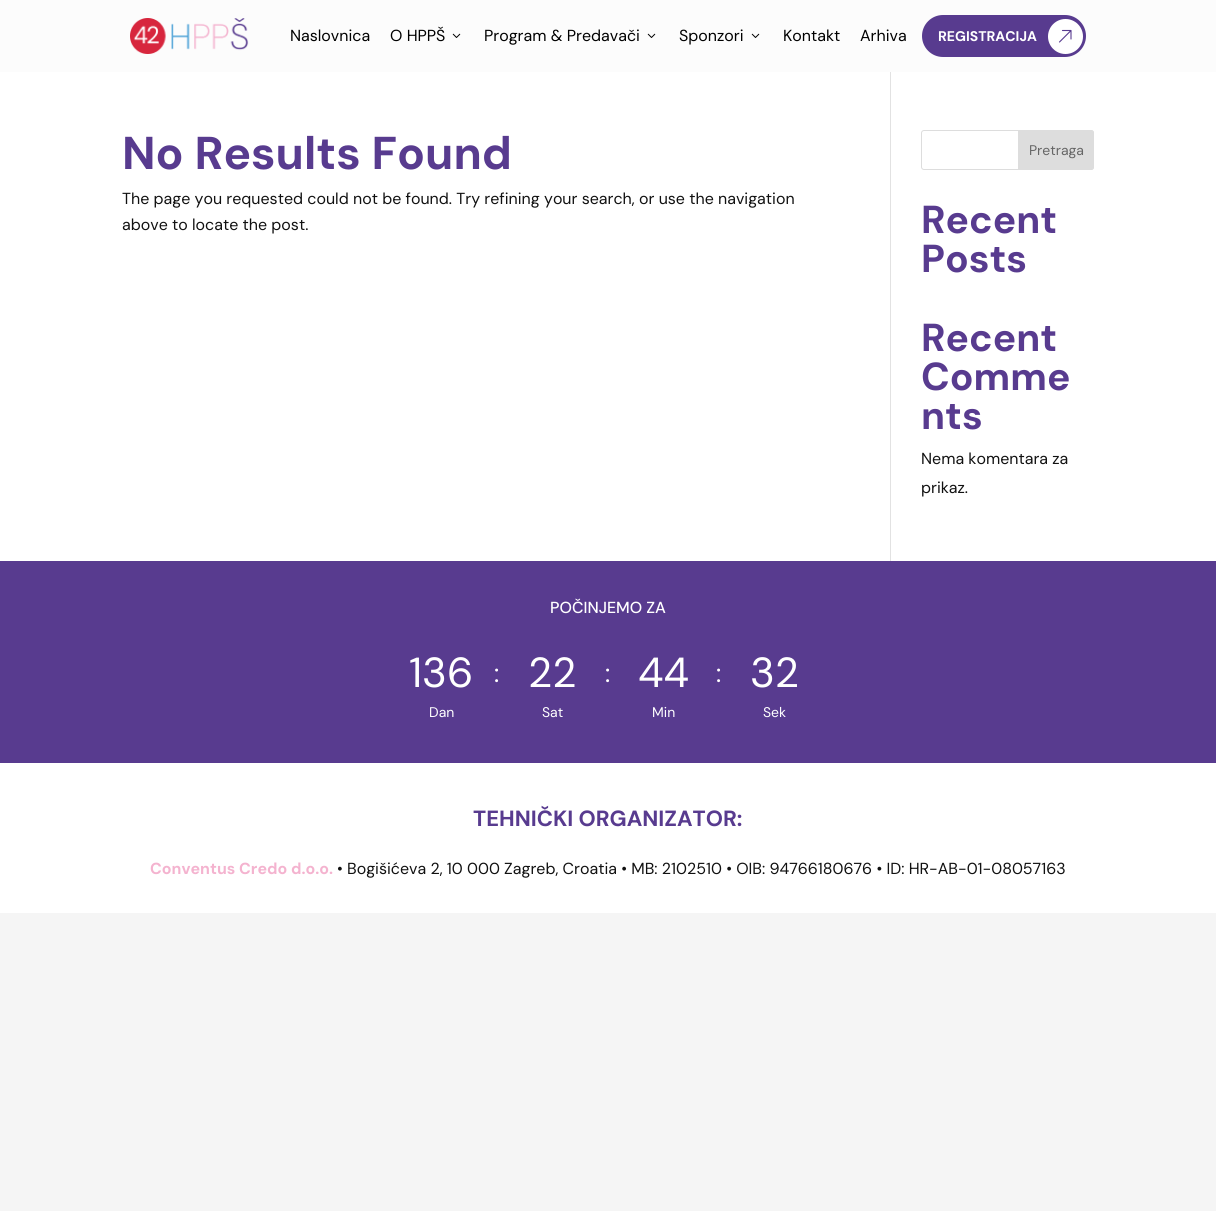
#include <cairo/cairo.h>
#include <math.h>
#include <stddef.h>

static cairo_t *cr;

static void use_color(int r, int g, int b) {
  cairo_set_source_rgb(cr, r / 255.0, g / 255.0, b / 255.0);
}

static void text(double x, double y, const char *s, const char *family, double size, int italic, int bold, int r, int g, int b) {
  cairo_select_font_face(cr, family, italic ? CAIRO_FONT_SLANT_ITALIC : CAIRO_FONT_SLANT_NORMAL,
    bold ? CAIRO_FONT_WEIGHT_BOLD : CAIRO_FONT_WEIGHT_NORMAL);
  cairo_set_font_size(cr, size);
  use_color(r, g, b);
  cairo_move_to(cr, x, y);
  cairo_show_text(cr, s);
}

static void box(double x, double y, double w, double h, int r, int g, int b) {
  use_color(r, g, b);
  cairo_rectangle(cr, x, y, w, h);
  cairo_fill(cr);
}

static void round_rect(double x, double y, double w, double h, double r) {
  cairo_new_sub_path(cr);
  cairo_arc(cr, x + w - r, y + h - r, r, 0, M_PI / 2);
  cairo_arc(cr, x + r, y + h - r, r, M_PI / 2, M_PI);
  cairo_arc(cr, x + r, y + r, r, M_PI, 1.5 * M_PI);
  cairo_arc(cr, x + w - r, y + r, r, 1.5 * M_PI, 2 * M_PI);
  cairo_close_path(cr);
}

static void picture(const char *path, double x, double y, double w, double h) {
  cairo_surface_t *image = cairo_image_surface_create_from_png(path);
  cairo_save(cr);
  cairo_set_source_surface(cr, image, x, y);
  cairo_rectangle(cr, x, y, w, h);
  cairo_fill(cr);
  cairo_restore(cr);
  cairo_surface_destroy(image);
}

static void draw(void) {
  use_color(245, 245, 245);
  cairo_paint(cr);
  box(0, 0, 1216, 72, 252, 252, 252);
  picture("img_01.png", 130, 18, 119, 36);
  picture("img_02.png", 452, 33, 9, 5);
  picture("img_02.png", 647, 33, 9, 5);
  picture("img_02.png", 751, 33, 9, 5);
  use_color(88, 59, 143);
  round_rect(922, 15, 164, 42, 21);
  cairo_fill(cr);
  use_color(255, 255, 255);
  cairo_arc(cr, 1065.5, 36.5, 17.5, 0, 2 * M_PI);
  cairo_fill(cr);
  cairo_new_path(cr);
  cairo_move_to(cr, 1059.5, 42);
  cairo_line_to(cr, 1071, 30.5);
  cairo_move_to(cr, 1071, 30.5);
  cairo_line_to(cr, 1062.5, 30.5);
  cairo_move_to(cr, 1071, 30.5);
  cairo_line_to(cr, 1071, 39);
  use_color(88, 59, 143);
  cairo_set_line_width(cr, 1.1);
  cairo_set_line_cap(cr, CAIRO_LINE_CAP_ROUND);
  cairo_set_line_join(cr, CAIRO_LINE_JOIN_ROUND);
  cairo_stroke(cr);
  box(0, 72, 1216, 489, 255, 255, 255);
  box(890, 72, 1, 489, 226, 226, 226);
  round_rect(921.5, 130.5, 172, 39, 2.5);
  use_color(221, 221, 221);
  cairo_set_line_width(cr, 1);
  cairo_set_line_cap(cr, CAIRO_LINE_CAP_BUTT);
  cairo_set_line_join(cr, CAIRO_LINE_JOIN_MITER);
  cairo_stroke(cr);
  cairo_new_path(cr);
  cairo_move_to(cr, 1018.5, 130.5);
  cairo_line_to(cr, 1091, 130.5);
  cairo_curve_to(cr, 1092.5, 130.5, 1093.5, 131.5, 1093.5, 133);
  cairo_line_to(cr, 1093.5, 167);
  cairo_curve_to(cr, 1093.5, 168.5, 1092.5, 169.5, 1091, 169.5);
  cairo_line_to(cr, 1018.5, 169.5);
  cairo_close_path(cr);
  cairo_fill_preserve(cr);
  cairo_stroke(cr);
  box(0, 561, 1216, 202, 88, 59, 143);
  box(0, 763, 1216, 150, 255, 255, 255);
  text(290, 41, "Naslovnica", "DM Sans", 16, 0, 0, 0, 0, 0);
  text(390, 41, "O HPPŠ", "DM Sans", 16, 0, 0, 0, 0, 0);
  text(484, 41, "Program & Predavači", "DM Sans", 16, 0, 0, 0, 0, 0);
  text(679, 41, "Sponzori", "DM Sans", 16, 0, 0, 0, 0, 0);
  text(783, 41, "Kontakt", "DM Sans", 16, 0, 0, 0, 0, 0);
  text(860, 41, "Arhiva", "DM Sans", 16, 0, 0, 0, 0, 0);
  text(938, 41, "REGISTRACIJA", "DM Sans", 14, 0, 1, 255, 255, 255);
  text(122, 169, "No Results Found", "DM Sans", 46, 0, 1, 88, 59, 143);
  text(122, 204, "The page you requested could not be found. Try refining your search, or use the navigation", "DM Sans", 16, 0, 0, 17, 17, 17);
  text(122, 230, "above to locate the post.", "DM Sans", 16, 0, 0, 17, 17, 17);
  text(1029, 155, "Pretraga", "DM Sans", 14, 0, 0, 102, 102, 102);
  text(921, 233, "Recent", "DM Sans", 39, 0, 1, 88, 59, 143);
  text(921, 272, "Posts", "DM Sans", 39, 0, 1, 88, 59, 143);
  text(921, 351, "Recent", "DM Sans", 39, 0, 1, 88, 59, 143);
  text(921, 390, "Comme", "DM Sans", 39, 0, 1, 88, 59, 143);
  text(921, 429, "nts", "DM Sans", 39, 0, 1, 88, 59, 143);
  text(921, 464, "Nema komentara za", "DM Sans", 16, 0, 0, 17, 17, 17);
  text(921, 493, "prikaz.", "DM Sans", 16, 0, 0, 17, 17, 17);
  text(550, 613, "POČINJEMO ZA", "DM Sans Medium", 16, 0, 0, 255, 255, 255);
  text(409, 687, "136", "DM Sans", 42, 0, 0, 255, 255, 255);
  text(429, 717, "Dan", "DM Sans", 14, 0, 0, 255, 255, 255);
  text(494, 682, ":", "DM Sans", 26, 0, 0, 255, 255, 255);
  text(528, 687, "22", "DM Sans", 42, 0, 0, 255, 255, 255);
  text(542, 717, "Sat", "DM Sans", 14, 0, 0, 255, 255, 255);
  text(605, 682, ":", "DM Sans", 26, 0, 0, 255, 255, 255);
  text(638, 687, "44", "DM Sans", 42, 0, 0, 255, 255, 255);
  text(652, 717, "Min", "DM Sans", 14, 0, 0, 255, 255, 255);
  text(716, 682, ":", "DM Sans", 26, 0, 0, 255, 255, 255);
  text(750, 687, "32", "DM Sans", 42, 0, 0, 255, 255, 255);
  text(763, 717, "Sek", "DM Sans", 14, 0, 0, 255, 255, 255);
  text(473, 826, "TEHNIČKI ORGANIZATOR:", "DM Sans", 22, 0, 1, 88, 59, 143);
  text(150, 874, "Conventus Credo d.o.o.", "DM Sans", 16, 0, 1, 244, 179, 207);
  text(337, 874, "• Bogišićeva 2, 10 000 Zagreb, Croatia • MB: 2102510 • OIB: 94766180676 • ID: HR-AB-01-08057163", "DM Sans", 16, 0, 0, 17, 17, 17);
}

int main(void) {
  cairo_surface_t *surface = cairo_image_surface_create(CAIRO_FORMAT_RGB24, 1216, 1211);
  cr = cairo_create(surface);
  cairo_font_options_t *options = cairo_font_options_create();
  cairo_font_options_set_hint_metrics(options, CAIRO_HINT_METRICS_OFF);
  cairo_font_options_set_hint_style(options, CAIRO_HINT_STYLE_NONE);
  cairo_set_font_options(cr, options);
  cairo_set_miter_limit(cr, 4);
  draw();
  cairo_surface_write_to_png(surface, "out.png");
  cairo_font_options_destroy(options);
  cairo_destroy(cr);
  cairo_surface_destroy(surface);
  return 0;
}
